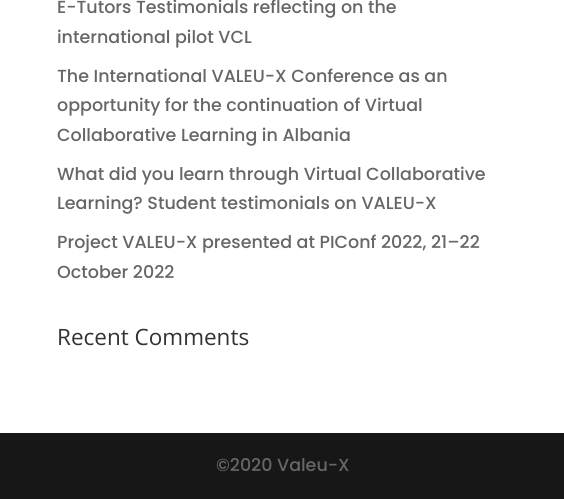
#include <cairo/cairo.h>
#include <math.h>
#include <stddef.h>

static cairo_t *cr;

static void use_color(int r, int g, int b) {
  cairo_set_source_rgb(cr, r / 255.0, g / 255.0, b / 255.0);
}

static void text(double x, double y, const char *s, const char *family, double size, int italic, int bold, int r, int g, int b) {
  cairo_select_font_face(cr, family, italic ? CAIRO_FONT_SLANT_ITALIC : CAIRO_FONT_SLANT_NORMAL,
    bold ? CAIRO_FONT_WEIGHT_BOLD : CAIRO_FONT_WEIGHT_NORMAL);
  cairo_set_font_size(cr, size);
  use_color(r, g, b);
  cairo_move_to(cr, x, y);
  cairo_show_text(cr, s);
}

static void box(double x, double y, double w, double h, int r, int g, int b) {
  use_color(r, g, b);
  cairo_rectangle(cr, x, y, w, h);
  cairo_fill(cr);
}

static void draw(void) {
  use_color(255, 255, 255);
  cairo_paint(cr);
  box(0, 433, 564, 66, 23, 23, 23);
  text(57, 13, "E-Tutors Testimonials reflecting on the", "Poppins Medium", 17.5, 0, 0, 102, 102, 102);
  text(57, 43, "international pilot VCL", "Poppins Medium", 17.5, 0, 0, 102, 102, 102);
  text(57, 82, "The International VALEU-X Conference as an", "Poppins Medium", 17.5, 0, 0, 102, 102, 102);
  text(57, 111, "opportunity for the continuation of Virtual", "Poppins Medium", 17.5, 0, 0, 102, 102, 102);
  text(57, 141, "Collaborative Learning in Albania", "Poppins Medium", 17.5, 0, 0, 102, 102, 102);
  text(57, 180, "What did you learn through Virtual Collaborative", "Poppins Medium", 17.5, 0, 0, 102, 102, 102);
  text(57, 209, "Learning? Student testimonials on VALEU-X", "Poppins Medium", 17.5, 0, 0, 102, 102, 102);
  text(57, 248, "Project VALEU-X presented at PIConf 2022, 21–22", "Poppins Medium", 17.5, 0, 0, 102, 102, 102);
  text(57, 278, "October 2022", "Poppins Medium", 17.5, 0, 0, 102, 102, 102);
  text(57, 345, "Recent Comments", "Open Sans", 22.5, 0, 0, 51, 51, 51);
  text(216, 471, "©2020 Valeu-X", "Poppins Medium", 17.5, 0, 0, 102, 102, 102);
}

int main(void) {
  cairo_surface_t *surface = cairo_image_surface_create(CAIRO_FORMAT_RGB24, 564, 499);
  cr = cairo_create(surface);
  cairo_font_options_t *options = cairo_font_options_create();
  cairo_font_options_set_hint_metrics(options, CAIRO_HINT_METRICS_OFF);
  cairo_font_options_set_hint_style(options, CAIRO_HINT_STYLE_NONE);
  cairo_set_font_options(cr, options);
  cairo_set_miter_limit(cr, 4);
  draw();
  cairo_surface_write_to_png(surface, "out.png");
  cairo_font_options_destroy(options);
  cairo_destroy(cr);
  cairo_surface_destroy(surface);
  return 0;
}
